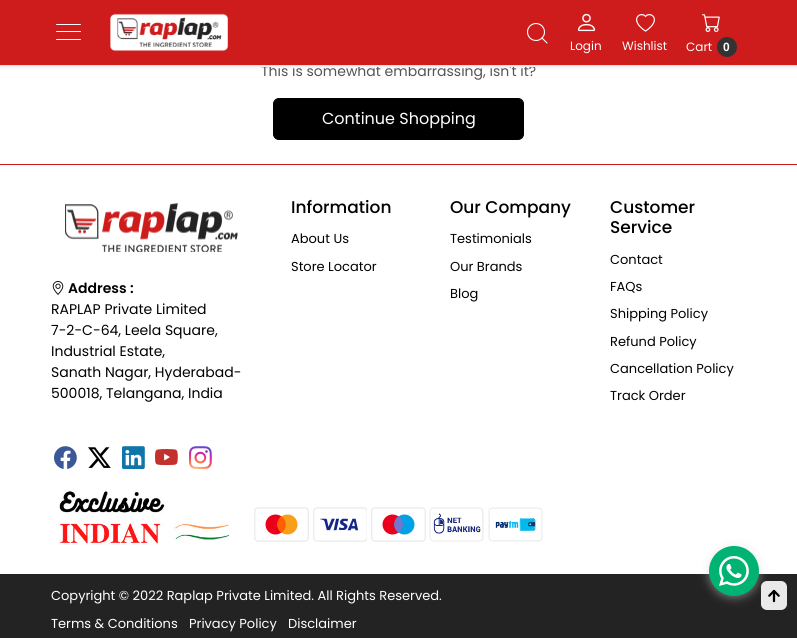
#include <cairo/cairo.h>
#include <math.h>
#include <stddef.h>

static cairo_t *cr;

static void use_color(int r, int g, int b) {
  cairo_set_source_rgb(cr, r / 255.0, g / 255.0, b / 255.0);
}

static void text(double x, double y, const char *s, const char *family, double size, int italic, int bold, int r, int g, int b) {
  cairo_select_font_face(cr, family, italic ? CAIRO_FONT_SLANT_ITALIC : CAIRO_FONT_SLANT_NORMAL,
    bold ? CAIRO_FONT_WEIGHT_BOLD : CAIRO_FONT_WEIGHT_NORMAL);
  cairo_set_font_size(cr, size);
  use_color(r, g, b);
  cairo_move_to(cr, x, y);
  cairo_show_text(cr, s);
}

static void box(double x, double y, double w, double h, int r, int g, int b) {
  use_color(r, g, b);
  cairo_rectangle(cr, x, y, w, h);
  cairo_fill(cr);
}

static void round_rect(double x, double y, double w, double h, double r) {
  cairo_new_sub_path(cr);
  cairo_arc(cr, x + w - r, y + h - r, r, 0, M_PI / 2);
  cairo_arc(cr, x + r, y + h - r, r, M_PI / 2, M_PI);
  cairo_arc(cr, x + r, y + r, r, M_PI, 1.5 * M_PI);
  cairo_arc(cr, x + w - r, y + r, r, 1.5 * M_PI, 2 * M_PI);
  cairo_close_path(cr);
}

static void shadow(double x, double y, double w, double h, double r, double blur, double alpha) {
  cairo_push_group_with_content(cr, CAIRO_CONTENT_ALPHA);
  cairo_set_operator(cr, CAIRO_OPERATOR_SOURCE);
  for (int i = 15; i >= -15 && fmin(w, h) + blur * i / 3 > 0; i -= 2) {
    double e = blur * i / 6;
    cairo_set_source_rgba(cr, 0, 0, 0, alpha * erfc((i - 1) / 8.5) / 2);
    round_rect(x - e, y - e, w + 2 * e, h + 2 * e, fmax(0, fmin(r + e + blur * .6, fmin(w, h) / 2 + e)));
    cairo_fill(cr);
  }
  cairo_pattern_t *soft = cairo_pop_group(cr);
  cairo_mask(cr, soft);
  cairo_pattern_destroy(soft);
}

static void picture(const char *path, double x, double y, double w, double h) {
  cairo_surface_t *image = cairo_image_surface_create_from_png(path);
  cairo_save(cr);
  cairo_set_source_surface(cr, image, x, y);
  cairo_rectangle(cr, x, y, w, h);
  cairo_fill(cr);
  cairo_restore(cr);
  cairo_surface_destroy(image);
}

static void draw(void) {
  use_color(255, 255, 255);
  cairo_paint(cr);
  use_color(5, 5, 10);
  shadow(0, 0, 797, 67, 0, 2.5, 0.08);
  use_color(0, 0, 0);
  round_rect(273.5, 98.5, 250, 41, 5.5);
  cairo_fill_preserve(cr);
  cairo_set_line_width(cr, 1);
  cairo_stroke(cr);
  box(0, 164, 797, 1, 206, 27, 27);
  picture("img_05.png", 65, 203, 173, 49);
  picture("img_06.png", 52, 281, 12, 14);
  picture("img_07.png", 54, 446, 23, 23);
  picture("img_08.png", 88, 447, 23, 21);
  picture("img_09.png", 122, 446, 23, 23);
  picture("img_10.png", 155, 449, 23, 17);
  picture("img_11.png", 189, 446, 23, 23);
  picture("img_12.png", 254, 507, 55, 35);
  picture("img_13.png", 313, 507, 54, 35);
  picture("img_14.png", 371, 507, 55, 35);
  picture("img_15.png", 429, 507, 55, 35);
  picture("img_16.png", 488, 507, 55, 35);
  picture("img_17.png", 59, 489, 170, 56);
  box(0, 574, 797, 64, 35, 35, 35);
  use_color(212, 212, 212);
  shadow(708, 546, 52, 52, 26, 4.5, 0.44);
  use_color(0, 179, 115);
  cairo_arc(cr, 734, 571, 25, 0, 2 * M_PI);
  cairo_fill(cr);
  picture("img_18.png", 719, 556, 30, 30);
  cairo_set_source_rgba(cr, 1, 1, 1, 0.9);
  round_rect(761, 581, 26, 29, 6);
  cairo_fill(cr);
  picture("img_19.png", 768, 589, 12, 14);
  text(261, 76, "This is somewhat embarrassing, isn't it?", "Poppins", 14, 0, 0, 84, 84, 84);
  box(0, 0, 797, 65, 206, 27, 27);
  use_color(51, 51, 51);
  cairo_new_path(cr);
  cairo_arc(cr, 727, 47, 10, 0, 2 * M_PI);
  cairo_fill(cr);
  text(723, 51, "0", "Liberation Sans", 12, 0, 1, 255, 255, 255);
  text(686, 51, "Cart", "Poppins", 12, 0, 0, 255, 255, 255);
  picture("img_04.png", 702, 14, 18, 18);
  picture("img_01.png", 110, 13, 118, 39);
  round_rect(56, 24, 25, 1, 0.5);
  cairo_fill(cr);
  round_rect(56, 31, 25, 1, 0.5);
  cairo_fill(cr);
  round_rect(56, 39, 25, 1, 0.5);
  cairo_fill(cr);
  cairo_arc(cr, 536, 32, 8.5, 0, 2 * M_PI);
  cairo_set_line_width(cr, 1.1);
  cairo_stroke(cr);
  cairo_new_path(cr);
  cairo_move_to(cr, 547, 43);
  cairo_line_to(cr, 542, 38);
  cairo_set_line_cap(cr, CAIRO_LINE_CAP_ROUND);
  cairo_set_line_join(cr, CAIRO_LINE_JOIN_ROUND);
  cairo_stroke(cr);
  text(622, 50, "Wishlist", "Poppins", 12, 0, 0, 255, 255, 255);
  picture("img_03.png", 636, 14, 19, 18);
  text(570, 50, "Login", "Poppins", 12, 0, 0, 255, 255, 255);
  picture("img_02.png", 577, 13, 19, 19);
  box(0, 65, 797, 1, 222, 226, 230);
  box(0, 66, 797, 1, 238, 238, 238);
  text(322, 124, "Continue Shopping", "Poppins", 16, 0, 0, 255, 255, 255);
  text(68, 293, "Address :", "Poppins SemiBold", 14, 0, 0, 0, 0, 0);
  text(51, 314, "RAPLAP Private Limited", "Poppins", 14, 0, 0, 0, 0, 0);
  text(51, 335, "7-2-C-64, Leela Square,", "Poppins", 14, 0, 0, 0, 0, 0);
  text(51, 356, "Industrial Estate,", "Poppins", 14, 0, 0, 0, 0, 0);
  text(51, 377, "Sanath Nagar, Hyderabad-", "Poppins", 14, 0, 0, 0, 0, 0);
  text(51, 398, "500018, Telangana, India", "Poppins", 14, 0, 0, 0, 0, 0);
  text(291, 213, "Information", "Poppins Medium", 17, 0, 0, 0, 0, 0);
  text(291, 243, "About Us", "Poppins", 13, 0, 0, 0, 0, 0);
  text(291, 271, "Store Locator", "Poppins", 13, 0, 0, 0, 0, 0);
  text(450, 213, "Our Company", "Poppins Medium", 17, 0, 0, 0, 0, 0);
  text(450, 243, "Testimonials", "Poppins", 13, 0, 0, 0, 0, 0);
  text(450, 271, "Our Brands", "Poppins", 13, 0, 0, 0, 0, 0);
  text(450, 298, "Blog", "Poppins", 13, 0, 0, 0, 0, 0);
  text(610, 213, "Customer", "Poppins Medium", 17, 0, 0, 0, 0, 0);
  text(610, 233, "Service", "Poppins Medium", 17, 0, 0, 0, 0, 0);
  text(610, 264, "Contact", "Poppins", 13, 0, 0, 0, 0, 0);
  text(610, 291, "FAQs", "Poppins", 13, 0, 0, 0, 0, 0);
  text(610, 318, "Shipping Policy", "Poppins", 13, 0, 0, 0, 0, 0);
  text(610, 346, "Refund Policy", "Poppins", 13, 0, 0, 0, 0, 0);
  text(610, 373, "Cancellation Policy", "Poppins", 13, 0, 0, 0, 0, 0);
  text(610, 400, "Track Order", "Poppins", 13, 0, 0, 0, 0, 0);
  text(51, 600, "Copyright © 2022 Raplap Private Limited. All Rights Reserved.", "Poppins", 13, 0, 0, 255, 255, 255);
  text(51, 628, "Terms & Conditions", "Poppins", 13, 0, 0, 255, 255, 255);
  text(189, 628, "Privacy Policy", "Poppins", 13, 0, 0, 255, 255, 255);
  text(288, 628, "Disclaimer", "Poppins", 13, 0, 0, 255, 255, 255);
}

int main(void) {
  cairo_surface_t *surface = cairo_image_surface_create(CAIRO_FORMAT_RGB24, 797, 638);
  cr = cairo_create(surface);
  cairo_font_options_t *options = cairo_font_options_create();
  cairo_font_options_set_hint_metrics(options, CAIRO_HINT_METRICS_OFF);
  cairo_font_options_set_hint_style(options, CAIRO_HINT_STYLE_NONE);
  cairo_set_font_options(cr, options);
  cairo_set_miter_limit(cr, 4);
  draw();
  cairo_surface_write_to_png(surface, "out.png");
  cairo_font_options_destroy(options);
  cairo_destroy(cr);
  cairo_surface_destroy(surface);
  return 0;
}
